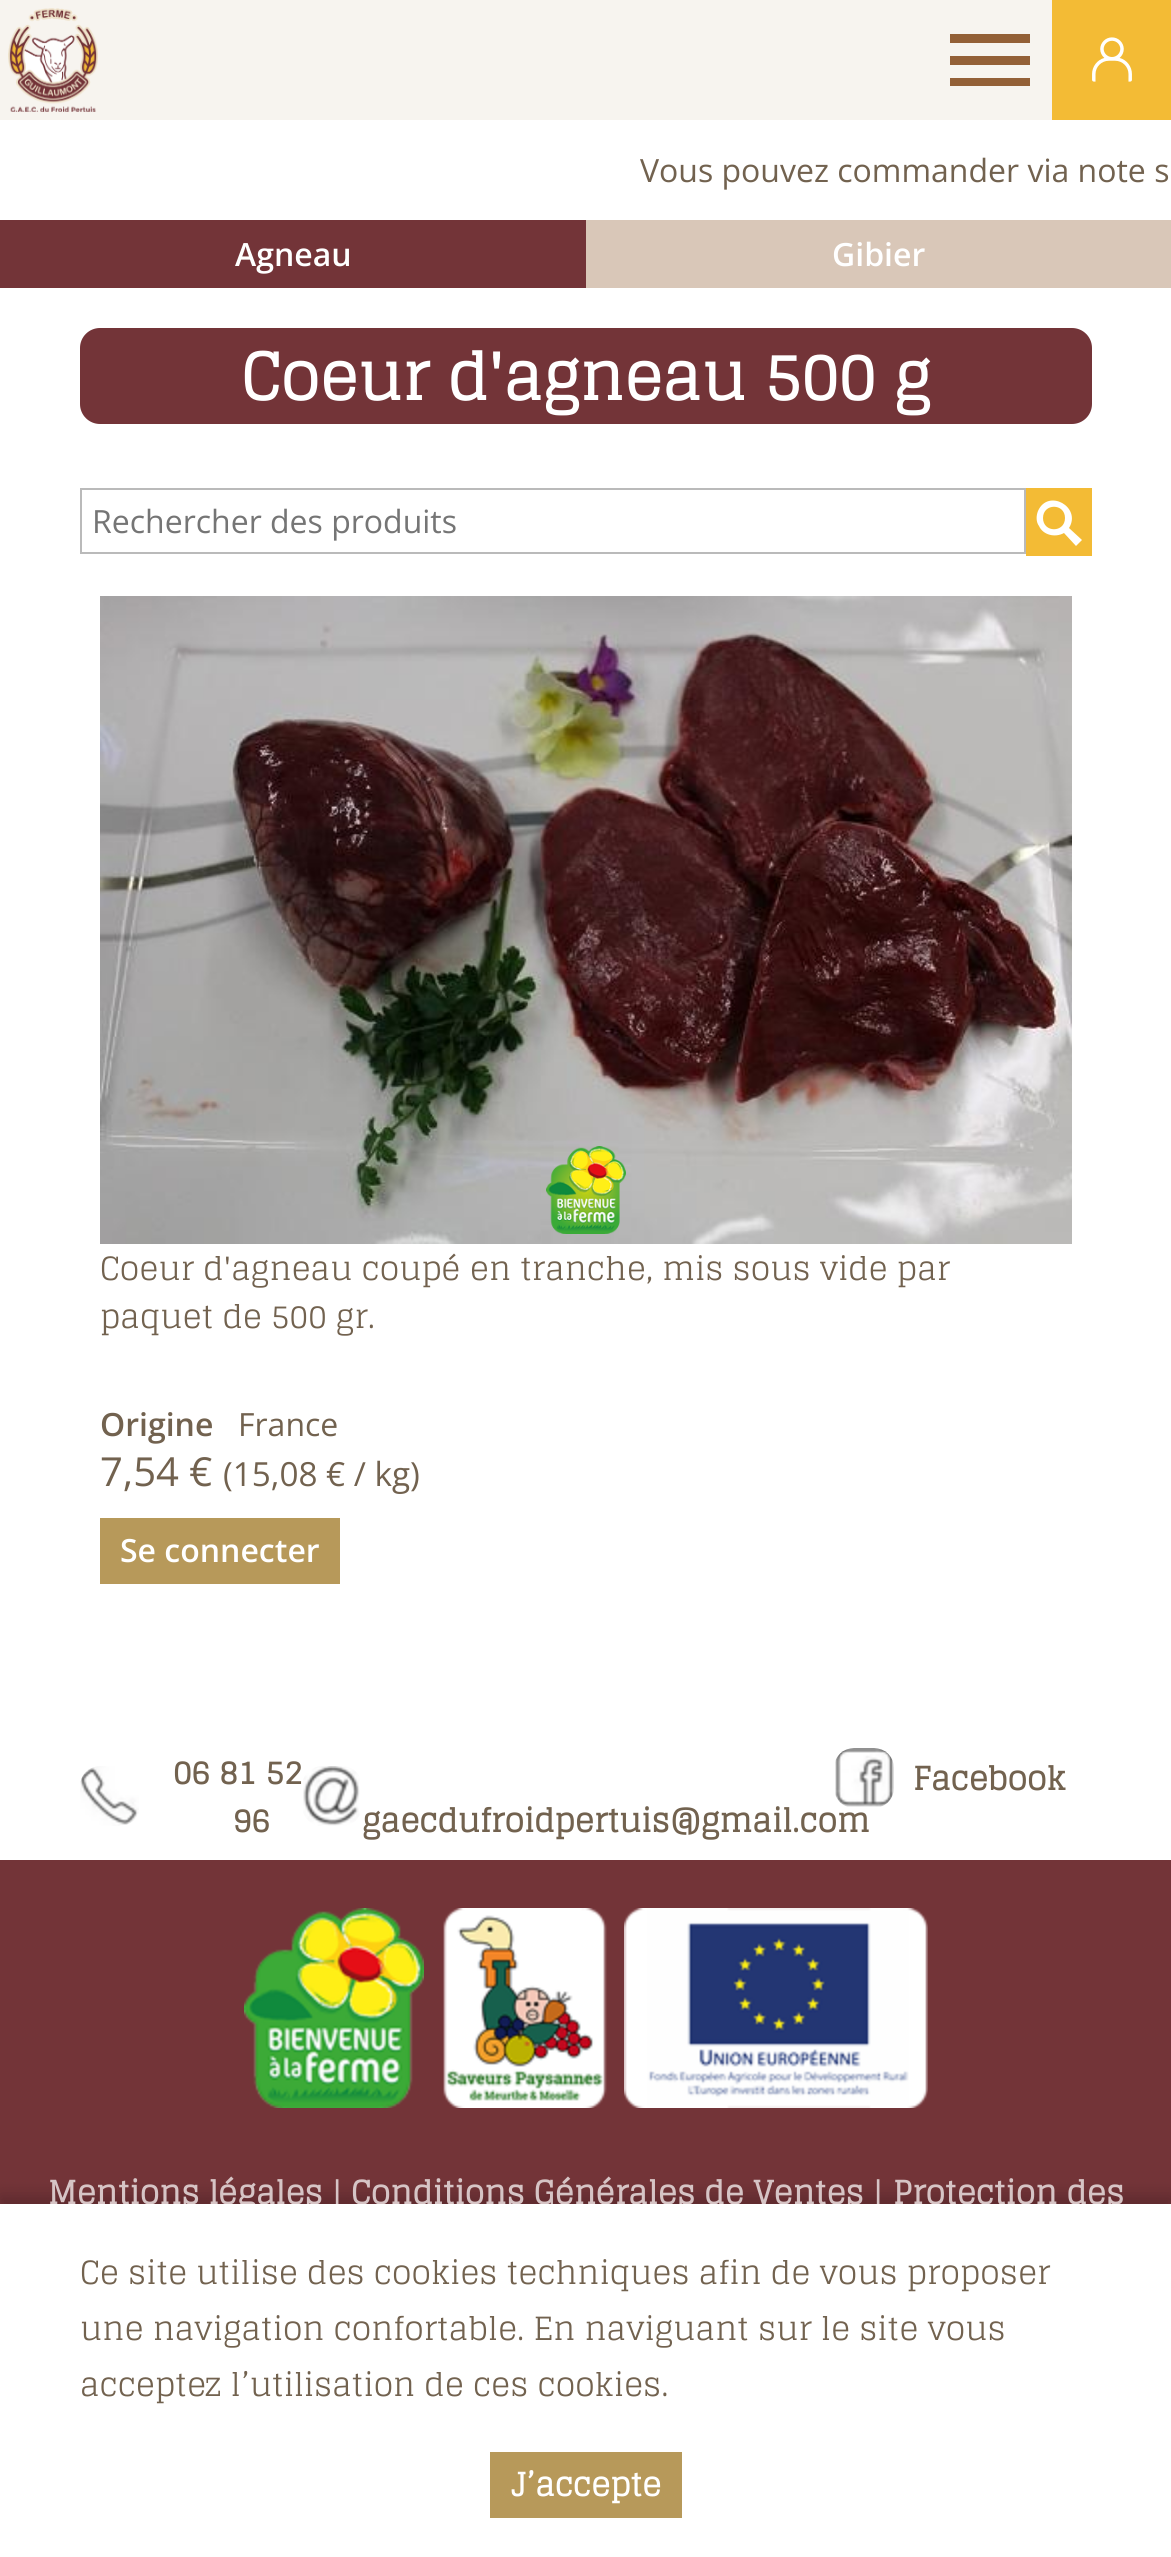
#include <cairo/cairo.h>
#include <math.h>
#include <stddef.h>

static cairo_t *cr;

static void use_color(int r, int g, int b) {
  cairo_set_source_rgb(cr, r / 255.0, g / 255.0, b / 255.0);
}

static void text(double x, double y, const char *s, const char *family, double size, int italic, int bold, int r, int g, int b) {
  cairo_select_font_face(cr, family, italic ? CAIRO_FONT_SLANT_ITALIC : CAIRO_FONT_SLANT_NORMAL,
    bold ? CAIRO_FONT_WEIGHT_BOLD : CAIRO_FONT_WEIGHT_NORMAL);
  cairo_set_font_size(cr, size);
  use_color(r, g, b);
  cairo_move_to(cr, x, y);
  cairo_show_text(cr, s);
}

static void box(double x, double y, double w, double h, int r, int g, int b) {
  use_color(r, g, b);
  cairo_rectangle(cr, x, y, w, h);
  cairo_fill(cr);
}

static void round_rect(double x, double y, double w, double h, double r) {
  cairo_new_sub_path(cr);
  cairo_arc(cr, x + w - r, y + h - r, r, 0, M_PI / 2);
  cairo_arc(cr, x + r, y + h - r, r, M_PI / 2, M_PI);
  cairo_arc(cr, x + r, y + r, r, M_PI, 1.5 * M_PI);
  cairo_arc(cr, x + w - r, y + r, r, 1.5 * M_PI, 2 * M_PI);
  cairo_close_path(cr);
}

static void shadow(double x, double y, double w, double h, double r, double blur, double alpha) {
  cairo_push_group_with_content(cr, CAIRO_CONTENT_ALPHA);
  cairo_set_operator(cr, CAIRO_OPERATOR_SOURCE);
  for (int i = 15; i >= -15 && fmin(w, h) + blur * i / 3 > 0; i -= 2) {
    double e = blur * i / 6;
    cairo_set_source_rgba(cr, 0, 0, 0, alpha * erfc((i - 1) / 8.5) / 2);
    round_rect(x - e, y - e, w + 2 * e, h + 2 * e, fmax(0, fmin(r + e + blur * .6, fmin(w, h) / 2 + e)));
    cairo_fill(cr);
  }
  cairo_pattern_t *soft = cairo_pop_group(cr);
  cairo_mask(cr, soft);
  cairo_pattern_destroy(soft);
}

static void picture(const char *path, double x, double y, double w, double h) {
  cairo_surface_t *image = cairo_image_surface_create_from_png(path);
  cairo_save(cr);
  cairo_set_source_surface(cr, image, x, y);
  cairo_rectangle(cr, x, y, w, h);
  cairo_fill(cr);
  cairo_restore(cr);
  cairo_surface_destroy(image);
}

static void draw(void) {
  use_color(255, 255, 255);
  cairo_paint(cr);
  box(0, 0, 1052, 120, 247, 244, 239);
  picture("img_01.png", 8, 8, 90, 104);
  cairo_save(cr);
  cairo_rectangle(cr, 950, 34, 80, 52);
  cairo_clip(cr);
  use_color(147, 96, 55);
  cairo_new_path(cr);
  cairo_move_to(cr, 950, 87);
  cairo_line_to(cr, 1030, 87);
  cairo_line_to(cr, 1030, 78);
  cairo_line_to(cr, 950, 78);
  cairo_close_path(cr);
  cairo_move_to(cr, 950, 65);
  cairo_line_to(cr, 1030, 65);
  cairo_line_to(cr, 1030, 56);
  cairo_line_to(cr, 950, 56);
  cairo_close_path(cr);
  cairo_move_to(cr, 950, 34);
  cairo_line_to(cr, 950, 43);
  cairo_line_to(cr, 1030, 43);
  cairo_line_to(cr, 1030, 34);
  cairo_close_path(cr);
  cairo_fill(cr);
  cairo_restore(cr);
  box(1052, 0, 119, 120, 243, 187, 53);
  picture("img_02.png", 1092, 37, 40, 45);
  box(586, 220, 585, 68, 217, 199, 184);
  box(0, 220, 586, 68, 115, 52, 56);
  round_rect(80, 328, 1012, 96, 20);
  cairo_fill(cr);
  cairo_rectangle(cr, 81, 489, 944, 64);
  use_color(186, 186, 186);
  cairo_stroke(cr);
  box(1026, 488, 66, 68, 243, 187, 53);
  use_color(255, 255, 255);
  cairo_new_path(cr);
  cairo_move_to(cr, 1082, 540);
  cairo_line_to(cr, 1069, 528);
  cairo_curve_to(cr, 1082, 507, 1048, 488, 1038, 511);
  cairo_curve_to(cr, 1036, 516, 1036, 522, 1039, 526);
  cairo_curve_to(cr, 1043, 535, 1055, 538, 1064, 533);
  cairo_line_to(cr, 1076, 546);
  cairo_close_path(cr);
  cairo_move_to(cr, 1043, 518);
  cairo_curve_to(cr, 1043, 503, 1065, 503, 1065, 518);
  cairo_curve_to(cr, 1065, 533, 1043, 533, 1043, 518);
  cairo_close_path(cr);
  cairo_fill(cr);
  picture("img_03.png", 100, 596, 972, 648);
  picture("img_04.png", 546, 1146, 80, 88);
  box(100, 1518, 240, 66, 183, 153, 90);
  picture("img_05.png", 80, 1766, 59, 60);
  picture("img_06.png", 835, 1748, 59, 59);
  picture("img_07.png", 303, 1766, 57, 60);
  box(0, 1860, 1171, 344, 115, 52, 56);
  picture("img_08.png", 244, 1908, 180, 200);
  picture("img_09.png", 443, 1908, 164, 200);
  picture("img_10.png", 624, 1908, 304, 200);
  use_color(0, 0, 0);
  shadow(0, 2196, 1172, 354, 0, 8, 0.2);
  text(640, 182, "Vous pouvez commander via note s", "Open Sans", 32, 0, 0, 114, 98, 79);
  text(235, 266, "Agneau", "Open Sans SemiBold", 32, 0, 0, 255, 255, 255);
  text(832, 266, "Gibier", "Open Sans SemiBold", 32, 0, 0, 255, 255, 255);
  text(241, 400, "Coeur d'agneau 500 g", "Glegoo", 64, 0, 1, 255, 255, 255);
  text(92, 533, "Rechercher des produits", "Open Sans", 32, 0, 0, 117, 117, 117);
  text(100, 1280, "Coeur d'agneau coupé en tranche, mis sous vide par", "Glegoo", 32, 0, 0, 114, 98, 79);
  text(100, 1328, "paquet de 500 gr.", "Glegoo", 32, 0, 0, 114, 98, 79);
  text(100, 1436, "Origine", "Open Sans SemiBold", 32, 0, 0, 114, 98, 79);
  text(238, 1436, "France", "Open Sans", 32, 0, 0, 114, 98, 79);
  text(100, 1486, "7,54 €", "Open Sans", 40, 0, 0, 114, 98, 79);
  text(223, 1486, "(15,08 € / kg)", "Open Sans", 33.25, 0, 0, 114, 98, 79);
  text(120, 1562, "Se connecter", "Open Sans SemiBold", 32, 0, 0, 255, 255, 255);
  text(173, 1784, "06 81 52", "Glegoo", 32, 0, 1, 114, 98, 79);
  text(233, 1832, "96", "Glegoo", 32, 0, 1, 114, 98, 79);
  text(913, 1790, "Facebook", "Glegoo", 32, 0, 1, 114, 98, 79);
  text(362, 1832, "gaecdufroidpertuis@gmail.com", "Glegoo", 32, 0, 1, 114, 98, 79);
  text(48, 2204, "Mentions légales", "Glegoo", 32, 0, 1, 214, 196, 197);
  text(332, 2204, "|", "Glegoo", 32, 0, 0, 214, 196, 197);
  text(351, 2204, "Conditions Générales de Ventes", "Glegoo", 32, 0, 1, 214, 196, 197);
  text(873, 2204, "|", "Glegoo", 32, 0, 0, 214, 196, 197);
  text(893, 2204, "Protection des", "Glegoo", 32, 0, 1, 214, 196, 197);
  box(0, 2204, 1171, 353, 255, 255, 255);
  text(80, 2284, "Ce site utilise des cookies techniques afin de vous proposer", "Glegoo", 32, 0, 0, 114, 98, 79);
  text(80, 2340, "une navigation confortable. En naviguant sur le site vous", "Glegoo", 32, 0, 0, 114, 98, 79);
  text(80, 2396, "acceptez l’utilisation de ces cookies.", "Glegoo", 32, 0, 0, 114, 98, 79);
  box(490, 2452, 192, 66, 183, 153, 90);
  text(511, 2496, "J’accepte", "Glegoo", 32, 0, 1, 255, 255, 255);
}

int main(void) {
  cairo_surface_t *surface = cairo_image_surface_create(CAIRO_FORMAT_RGB24, 1171, 2557);
  cr = cairo_create(surface);
  cairo_font_options_t *options = cairo_font_options_create();
  cairo_font_options_set_hint_metrics(options, CAIRO_HINT_METRICS_OFF);
  cairo_font_options_set_hint_style(options, CAIRO_HINT_STYLE_NONE);
  cairo_set_font_options(cr, options);
  cairo_set_miter_limit(cr, 4);
  draw();
  cairo_surface_write_to_png(surface, "out.png");
  cairo_font_options_destroy(options);
  cairo_destroy(cr);
  cairo_surface_destroy(surface);
  return 0;
}
